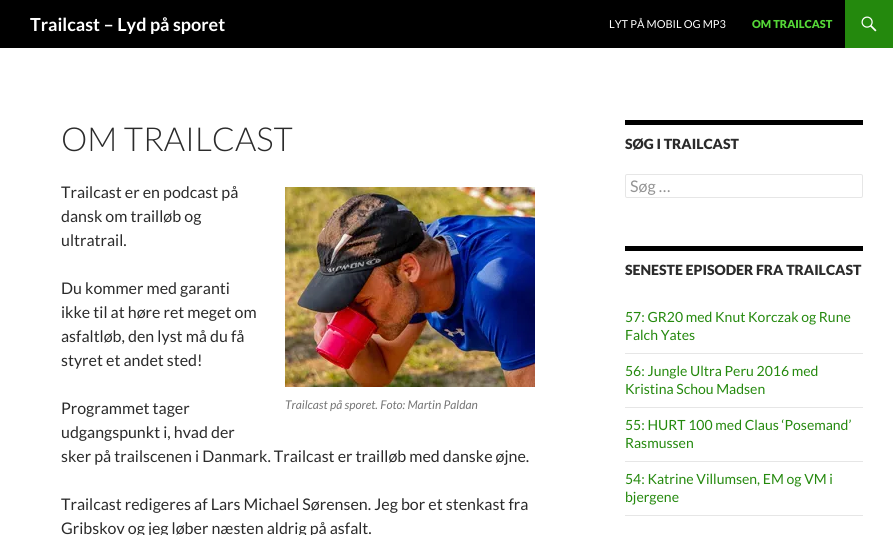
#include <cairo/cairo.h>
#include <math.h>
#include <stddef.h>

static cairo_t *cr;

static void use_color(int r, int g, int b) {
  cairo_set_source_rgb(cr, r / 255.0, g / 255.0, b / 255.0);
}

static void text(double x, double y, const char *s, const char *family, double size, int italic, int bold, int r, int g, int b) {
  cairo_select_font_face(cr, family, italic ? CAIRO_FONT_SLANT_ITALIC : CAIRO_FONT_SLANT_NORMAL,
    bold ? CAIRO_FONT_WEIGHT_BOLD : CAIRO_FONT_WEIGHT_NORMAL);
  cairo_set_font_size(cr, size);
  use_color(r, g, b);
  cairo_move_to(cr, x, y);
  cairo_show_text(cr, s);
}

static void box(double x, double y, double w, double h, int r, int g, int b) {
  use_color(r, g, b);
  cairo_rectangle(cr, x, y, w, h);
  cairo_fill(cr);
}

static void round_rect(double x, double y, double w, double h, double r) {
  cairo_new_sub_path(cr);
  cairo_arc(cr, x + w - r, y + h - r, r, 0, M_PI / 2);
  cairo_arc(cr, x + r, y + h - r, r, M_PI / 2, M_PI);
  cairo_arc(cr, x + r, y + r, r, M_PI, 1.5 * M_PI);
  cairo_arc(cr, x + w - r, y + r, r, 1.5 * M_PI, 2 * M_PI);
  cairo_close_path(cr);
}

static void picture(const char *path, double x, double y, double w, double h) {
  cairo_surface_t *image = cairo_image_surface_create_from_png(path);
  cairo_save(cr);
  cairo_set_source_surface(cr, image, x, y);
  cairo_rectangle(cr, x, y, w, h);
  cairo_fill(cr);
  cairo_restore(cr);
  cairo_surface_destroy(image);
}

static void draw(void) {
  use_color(255, 255, 255);
  cairo_paint(cr);
  box(0, 0, 845, 48, 0, 0, 0);
  box(845, 0, 48, 48, 36, 137, 13);
  picture("img_01.png", 861, 16, 16, 16);
  picture("img_02.png", 285, 187, 250, 200);
  box(625, 120, 238, 5, 0, 0, 0);
  round_rect(625.5, 174.5, 237, 23, 1.5);
  use_color(230, 230, 230);
  cairo_set_line_width(cr, 1);
  cairo_stroke(cr);
  box(625, 246, 238, 5, 0, 0, 0);
  box(625, 353, 238, 1, 230, 230, 230);
  box(625, 407, 238, 1, 230, 230, 230);
  box(625, 461, 238, 1, 230, 230, 230);
  box(625, 515, 238, 1, 230, 230, 230);
  text(30, 31, "Trailcast – Lyd på sporet", "Lato", 18, 0, 1, 255, 255, 255);
  text(609, 28, "LYT PÅ MOBIL OG MP3", "Lato", 11, 0, 0, 255, 255, 255);
  text(752, 28, "OM TRAILCAST", "Lato Black", 11, 0, 0, 85, 215, 55);
  text(61, 151, "OM TRAILCAST", "Lato Light", 33, 0, 0, 43, 43, 43);
  text(61, 198, "Trailcast er en podcast på", "Lato", 16, 0, 0, 43, 43, 43);
  text(61, 222, "dansk om trailløb og", "Lato", 16, 0, 0, 43, 43, 43);
  text(61, 246, "ultratrail.", "Lato", 16, 0, 0, 43, 43, 43);
  text(61, 294, "Du kommer med garanti", "Lato", 16, 0, 0, 43, 43, 43);
  text(61, 318, "ikke til at høre ret meget om", "Lato", 16, 0, 0, 43, 43, 43);
  text(61, 342, "asfaltløb, den lyst må du få", "Lato", 16, 0, 0, 43, 43, 43);
  text(61, 366, "styret et andet sted!", "Lato", 16, 0, 0, 43, 43, 43);
  text(285, 409, "Trailcast på sporet. Foto: Martin Paldan", "Lato", 12, 1, 0, 118, 118, 118);
  text(61, 414, "Programmet tager", "Lato", 16, 0, 0, 43, 43, 43);
  text(61, 438, "udgangspunkt i, hvad der", "Lato", 16, 0, 0, 43, 43, 43);
  text(61, 462, "sker på trailscenen i Danmark. Trailcast er trailløb med danske øjne.", "Lato", 16, 0, 0, 43, 43, 43);
  text(61, 510, "Trailcast redigeres af Lars Michael Sørensen. Jeg bor et stenkast fra", "Lato", 16, 0, 0, 43, 43, 43);
  text(61, 534, "Gribskov og jeg løber næsten aldrig på asfalt.", "Lato", 16, 0, 0, 43, 43, 43);
  text(625, 149, "SØG I TRAILCAST", "Lato Black", 14, 0, 0, 43, 43, 43);
  text(630, 192, "Søg …", "Lato", 16, 0, 0, 147, 147, 147);
  text(625, 275, "SENESTE EPISODER FRA TRAILCAST", "Lato Black", 14, 0, 0, 43, 43, 43);
  text(625, 322, "57: GR20 med Knut Korczak og Rune", "Lato", 14, 0, 0, 36, 137, 13);
  text(625, 340, "Falch Yates", "Lato", 14, 0, 0, 36, 137, 13);
  text(625, 376, "56: Jungle Ultra Peru 2016 med", "Lato", 14, 0, 0, 36, 137, 13);
  text(625, 394, "Kristina Schou Madsen", "Lato", 14, 0, 0, 36, 137, 13);
  text(625, 430, "55: HURT 100 med Claus ‘Posemand’", "Lato", 14, 0, 0, 36, 137, 13);
  text(625, 448, "Rasmussen", "Lato", 14, 0, 0, 36, 137, 13);
  text(625, 484, "54: Katrine Villumsen, EM og VM i", "Lato", 14, 0, 0, 36, 137, 13);
  text(625, 502, "bjergene", "Lato", 14, 0, 0, 36, 137, 13);
}

int main(void) {
  cairo_surface_t *surface = cairo_image_surface_create(CAIRO_FORMAT_RGB24, 893, 535);
  cr = cairo_create(surface);
  cairo_font_options_t *options = cairo_font_options_create();
  cairo_font_options_set_hint_metrics(options, CAIRO_HINT_METRICS_OFF);
  cairo_font_options_set_hint_style(options, CAIRO_HINT_STYLE_NONE);
  cairo_set_font_options(cr, options);
  cairo_set_miter_limit(cr, 4);
  draw();
  cairo_surface_write_to_png(surface, "out.png");
  cairo_font_options_destroy(options);
  cairo_destroy(cr);
  cairo_surface_destroy(surface);
  return 0;
}
